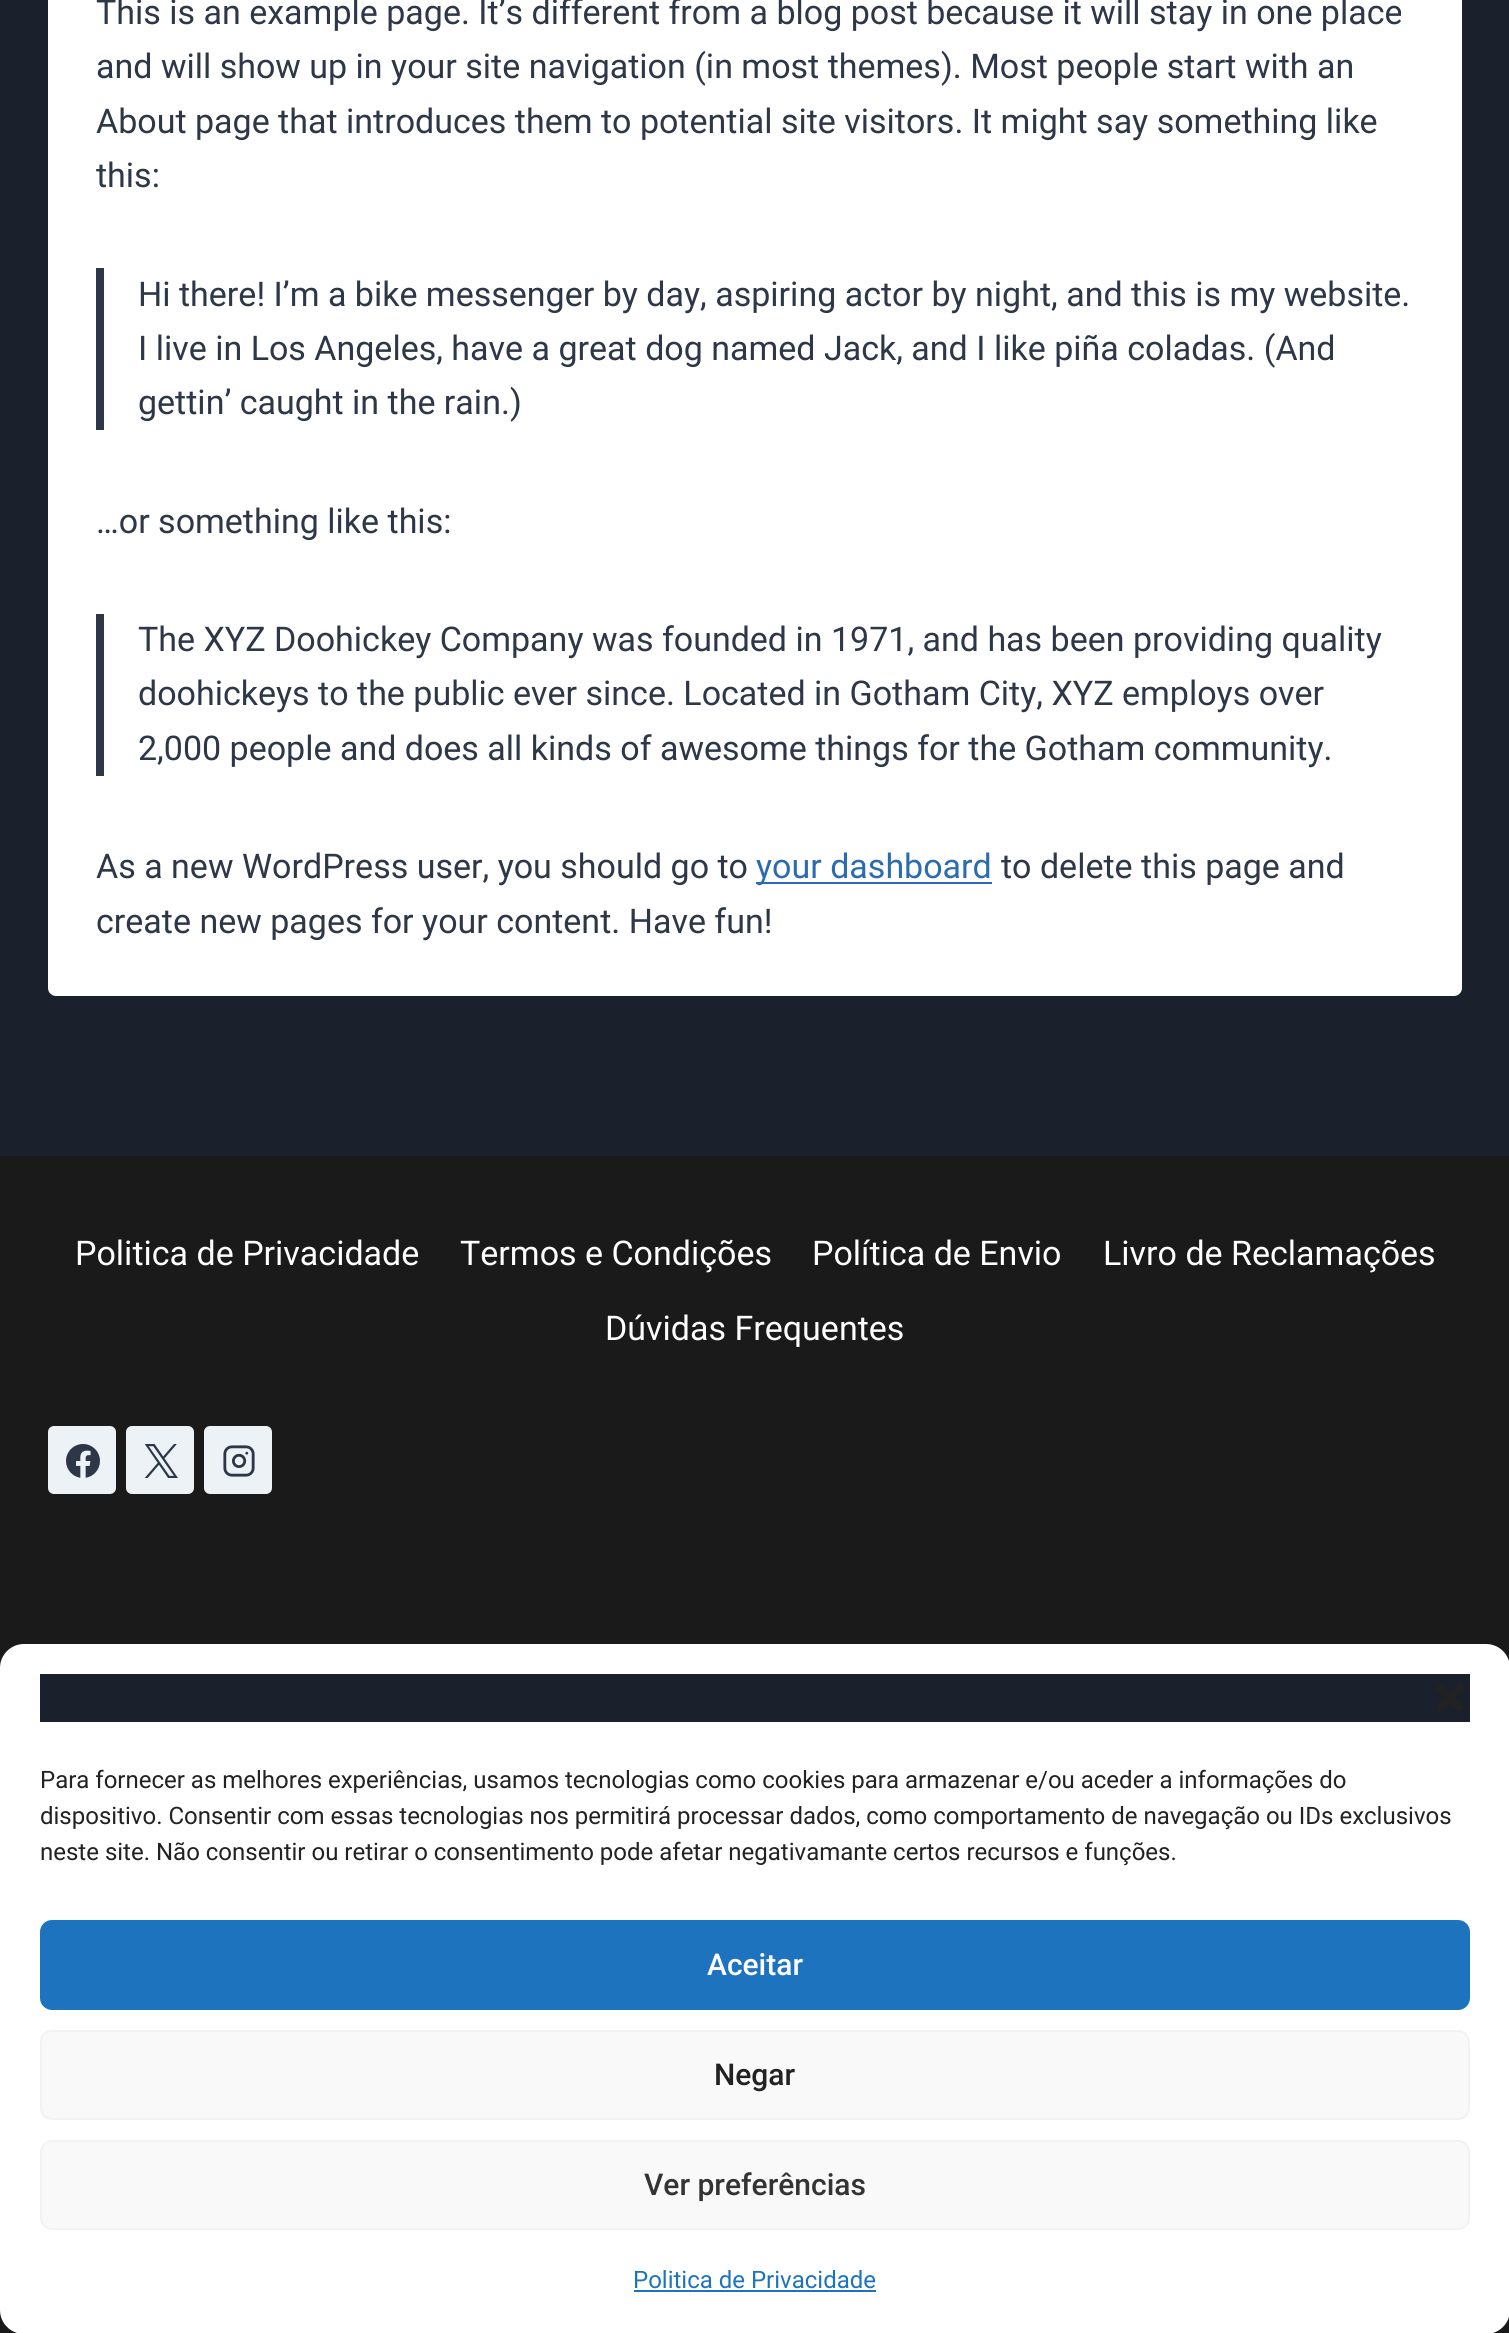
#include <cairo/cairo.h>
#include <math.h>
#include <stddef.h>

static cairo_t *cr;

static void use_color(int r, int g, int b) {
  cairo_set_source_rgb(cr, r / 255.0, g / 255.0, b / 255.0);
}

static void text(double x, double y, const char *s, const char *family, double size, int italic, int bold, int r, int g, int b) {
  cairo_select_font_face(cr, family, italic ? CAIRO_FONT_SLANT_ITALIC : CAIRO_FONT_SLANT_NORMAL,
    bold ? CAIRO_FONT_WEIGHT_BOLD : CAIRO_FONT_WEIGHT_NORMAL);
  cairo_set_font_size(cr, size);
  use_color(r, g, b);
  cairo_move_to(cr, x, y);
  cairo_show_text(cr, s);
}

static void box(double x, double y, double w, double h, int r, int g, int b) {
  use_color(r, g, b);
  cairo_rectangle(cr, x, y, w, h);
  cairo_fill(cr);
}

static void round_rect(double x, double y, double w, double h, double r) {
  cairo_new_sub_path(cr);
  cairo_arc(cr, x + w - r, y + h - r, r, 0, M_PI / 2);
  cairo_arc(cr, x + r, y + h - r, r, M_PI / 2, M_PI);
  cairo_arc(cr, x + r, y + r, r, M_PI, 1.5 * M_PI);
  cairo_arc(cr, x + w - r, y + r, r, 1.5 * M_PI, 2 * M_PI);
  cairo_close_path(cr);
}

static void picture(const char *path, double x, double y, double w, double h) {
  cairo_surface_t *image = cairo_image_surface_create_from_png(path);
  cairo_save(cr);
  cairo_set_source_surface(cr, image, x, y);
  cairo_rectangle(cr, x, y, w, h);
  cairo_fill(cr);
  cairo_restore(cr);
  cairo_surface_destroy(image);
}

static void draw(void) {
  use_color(26, 32, 44);
  cairo_paint(cr);
  use_color(255, 255, 255);
  round_rect(48, -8, 1414, 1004, 8);
  cairo_fill(cr);
  box(96, 268, 8, 162, 45, 55, 72);
  box(96, 614, 8, 162, 45, 55, 72);
  box(756, 882, 236, 2, 43, 108, 176);
  box(0, 1156, 1509, 1177, 26, 26, 26);
  use_color(237, 242, 247);
  round_rect(48, 1426, 68, 68, 6);
  cairo_fill(cr);
  picture("img_01.png", 66, 1444, 34, 34);
  round_rect(126, 1426, 68, 68, 6);
  cairo_fill(cr);
  picture("img_02.png", 144, 1444, 34, 34);
  round_rect(204, 1426, 68, 68, 6);
  cairo_fill(cr);
  picture("img_03.png", 223, 1445, 32, 32);
  use_color(255, 255, 255);
  round_rect(0, 1644, 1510, 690, 24);
  cairo_fill(cr);
  box(40, 1674, 1430, 48, 26, 32, 44);
  picture("img_04.png", 1436, 1684, 28, 28);
  use_color(30, 115, 190);
  round_rect(41, 1921, 1428, 88, 11);
  cairo_fill_preserve(cr);
  cairo_stroke(cr);
  use_color(249, 249, 249);
  round_rect(41, 2031, 1428, 88, 11);
  cairo_fill_preserve(cr);
  use_color(242, 242, 242);
  cairo_stroke(cr);
  use_color(249, 249, 249);
  round_rect(41, 2141, 1428, 88, 11);
  cairo_fill_preserve(cr);
  use_color(242, 242, 242);
  cairo_stroke(cr);
  box(634, 2290, 242, 2, 30, 115, 190);
  text(96, 24, "This is an example page. It’s different from a blog post because it will stay in one place", "Roboto", 34, 0, 0, 45, 55, 72);
  text(96, 78, "and will show up in your site navigation (in most themes). Most people start with an", "Roboto", 34, 0, 0, 45, 55, 72);
  text(96, 133, "About page that introduces them to potential site visitors. It might say something like", "Roboto", 34, 0, 0, 45, 55, 72);
  text(96, 187, "this:", "Roboto", 34, 0, 0, 45, 55, 72);
  text(138, 306, "Hi there! I’m a bike messenger by day, aspiring actor by night, and this is my website.", "Roboto", 34, 0, 0, 45, 55, 72);
  text(138, 360, "I live in Los Angeles, have a great dog named Jack, and I like piña coladas. (And", "Roboto", 34, 0, 0, 45, 55, 72);
  text(138, 414, "gettin’ caught in the rain.)", "Roboto", 34, 0, 0, 45, 55, 72);
  text(96, 533, "…or something like this:", "Roboto", 34, 0, 0, 45, 55, 72);
  text(138, 651, "The XYZ Doohickey Company was founded in 1971, and has been providing quality", "Roboto", 34, 0, 0, 45, 55, 72);
  text(138, 705, "doohickeys to the public ever since. Located in Gotham City, XYZ employs over", "Roboto", 34, 0, 0, 45, 55, 72);
  text(138, 760, "2,000 people and does all kinds of awesome things for the Gotham community.", "Roboto", 34, 0, 0, 45, 55, 72);
  text(96, 878, "As a new WordPress user, you should go to", "Roboto", 34, 0, 0, 45, 55, 72);
  text(756, 878, "your dashboard", "Roboto", 34, 0, 0, 43, 108, 176);
  text(1001, 878, "to delete this page and", "Roboto", 34, 0, 0, 45, 55, 72);
  text(96, 933, "create new pages for your content. Have fun!", "Roboto", 34, 0, 0, 45, 55, 72);
  text(75, 1265, "Politica de Privacidade", "Roboto", 34, 0, 0, 255, 255, 255);
  text(460, 1265, "Termos e Condições", "Roboto", 34, 0, 0, 255, 255, 255);
  text(812, 1265, "Política de Envio", "Roboto", 34, 0, 0, 255, 255, 255);
  text(1103, 1265, "Livro de Reclamações", "Roboto", 34, 0, 0, 255, 255, 255);
  text(605, 1340, "Dúvidas Frequentes", "Roboto", 34, 0, 0, 255, 255, 255);
  text(40, 1788, "Para fornecer as melhores experiências, usamos tecnologias como cookies para armazenar e/ou aceder a informações do", "Roboto", 24, 0, 0, 34, 34, 34);
  text(40, 1824, "dispositivo. Consentir com essas tecnologias nos permitirá processar dados, como comportamento de navegação ou IDs exclusivos", "Roboto", 24, 0, 0, 34, 34, 34);
  text(40, 1860, "neste site. Não consentir ou retirar o consentimento pode afetar negativamante certos recursos e funções.", "Roboto", 24, 0, 0, 34, 34, 34);
  text(707, 1975, "Aceitar", "Roboto Medium", 30, 0, 0, 255, 255, 255);
  text(714, 2085, "Negar", "Roboto Medium", 30, 0, 0, 34, 34, 34);
  text(644, 2195, "Ver preferências", "Roboto Medium", 30, 0, 0, 51, 51, 51);
  text(633, 2288, "Politica de Privacidade", "Roboto", 24, 0, 0, 30, 115, 190);
}

int main(void) {
  cairo_surface_t *surface = cairo_image_surface_create(CAIRO_FORMAT_RGB24, 1509, 2333);
  cr = cairo_create(surface);
  cairo_font_options_t *options = cairo_font_options_create();
  cairo_font_options_set_hint_metrics(options, CAIRO_HINT_METRICS_OFF);
  cairo_font_options_set_hint_style(options, CAIRO_HINT_STYLE_NONE);
  cairo_set_font_options(cr, options);
  cairo_set_miter_limit(cr, 4);
  draw();
  cairo_surface_write_to_png(surface, "out.png");
  cairo_font_options_destroy(options);
  cairo_destroy(cr);
  cairo_surface_destroy(surface);
  return 0;
}
